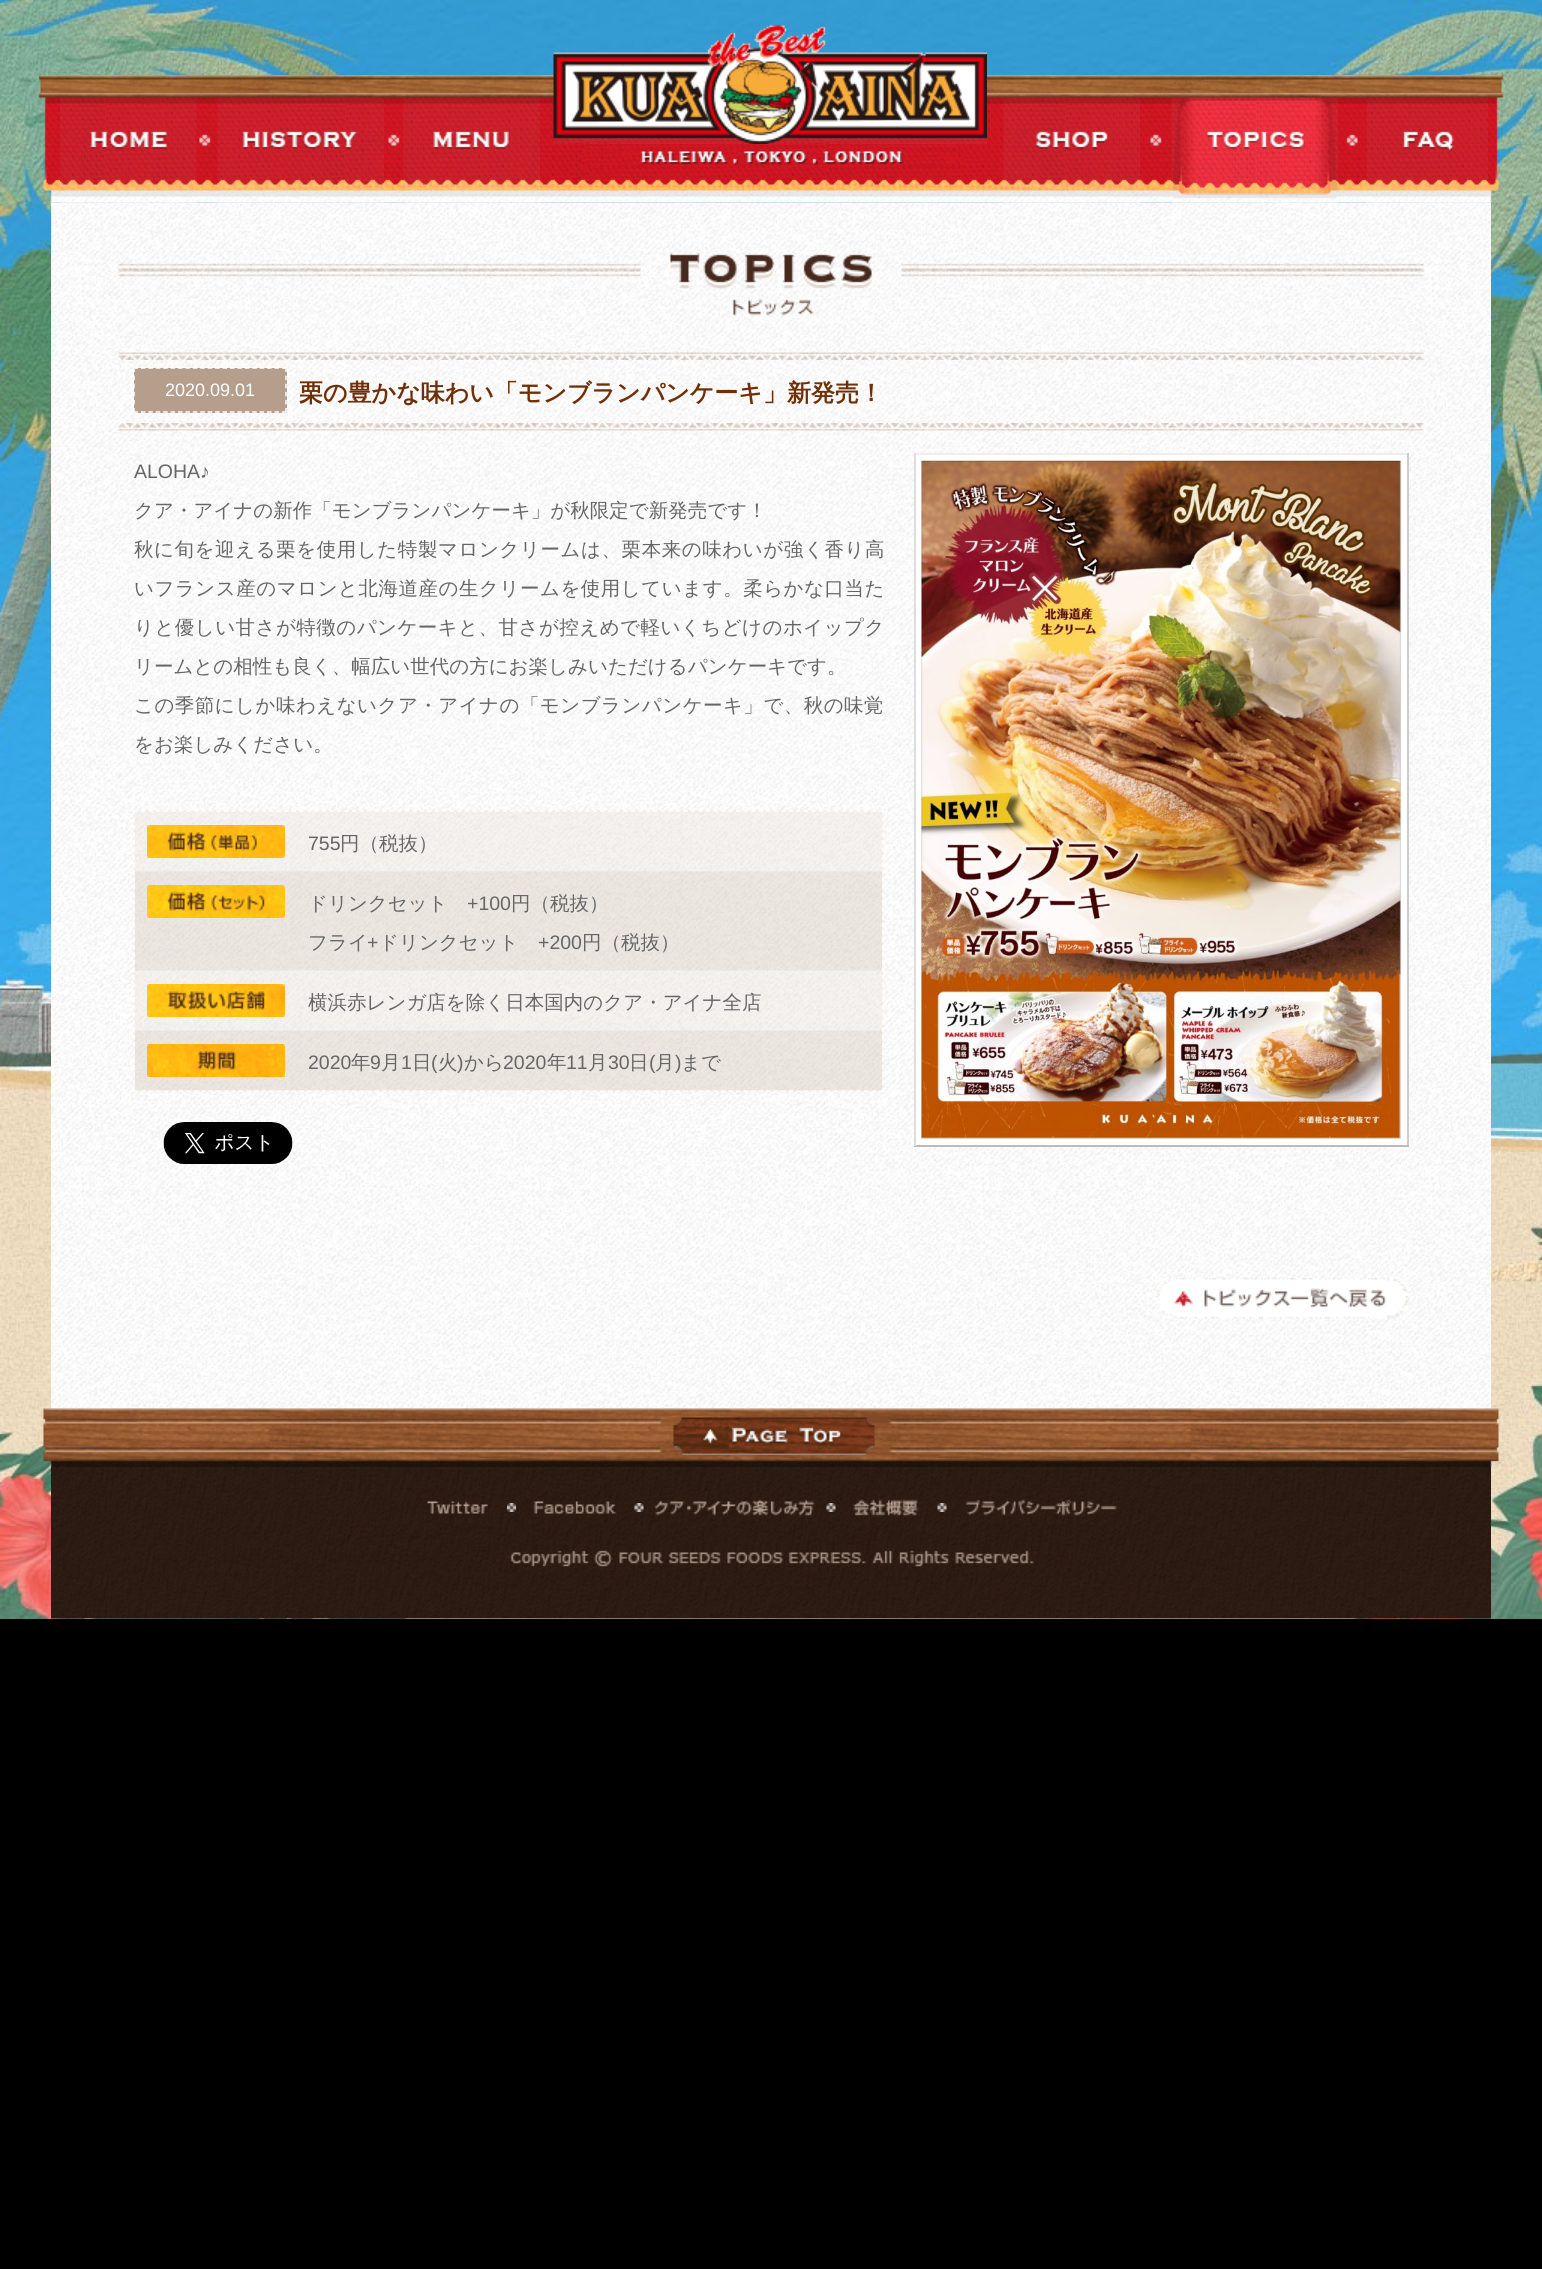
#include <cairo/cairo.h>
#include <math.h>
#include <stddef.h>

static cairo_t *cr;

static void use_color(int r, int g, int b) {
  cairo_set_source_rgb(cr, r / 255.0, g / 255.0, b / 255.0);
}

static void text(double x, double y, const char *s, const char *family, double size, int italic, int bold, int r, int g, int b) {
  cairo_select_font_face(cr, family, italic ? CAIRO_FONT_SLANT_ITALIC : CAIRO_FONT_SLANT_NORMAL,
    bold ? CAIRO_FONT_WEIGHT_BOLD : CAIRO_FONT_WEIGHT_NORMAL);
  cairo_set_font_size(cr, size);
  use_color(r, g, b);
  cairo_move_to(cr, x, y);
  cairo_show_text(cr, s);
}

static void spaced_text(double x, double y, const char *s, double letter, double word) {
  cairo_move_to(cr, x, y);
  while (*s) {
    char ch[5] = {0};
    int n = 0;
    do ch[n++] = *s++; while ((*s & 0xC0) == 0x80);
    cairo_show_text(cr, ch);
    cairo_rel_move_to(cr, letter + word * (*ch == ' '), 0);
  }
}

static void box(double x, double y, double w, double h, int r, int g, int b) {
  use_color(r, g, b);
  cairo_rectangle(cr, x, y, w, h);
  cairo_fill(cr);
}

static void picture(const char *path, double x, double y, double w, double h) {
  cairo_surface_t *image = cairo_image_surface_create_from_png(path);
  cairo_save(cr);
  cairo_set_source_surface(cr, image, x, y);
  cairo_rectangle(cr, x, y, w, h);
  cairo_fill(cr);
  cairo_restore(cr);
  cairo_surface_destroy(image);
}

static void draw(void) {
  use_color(0, 0, 0);
  cairo_paint(cr);
  picture("img_01.png", 0, 0, 1542, 1619);
  picture("img_10.png", 51, 202, 1440, 1207);
  picture("img_02.png", 38, 75, 1466, 128);
  picture("img_03.png", 553, 25, 434, 119);
  picture("img_04.png", 60, 97, 137, 106);
  picture("img_05.png", 217, 97, 167, 106);
  picture("img_06.png", 403, 97, 137, 106);
  picture("img_07.png", 1003, 97, 137, 106);
  picture("img_08.png", 1171, 97, 167, 106);
  picture("img_09.png", 1366, 97, 122, 106);
  picture("img_11.png", 118, 253, 1306, 63);
  picture("img_12.png", 118, 352, 1306, 8);
  box(134, 368, 153, 45, 182, 158, 141);
  cairo_new_path(cr);
  cairo_move_to(cr, 133.5, 368);
  cairo_line_to(cr, 286.5, 368);
  use_color(255, 255, 255);
  cairo_set_line_width(cr, 1.5);
  cairo_set_dash(cr, (double[]){4.5, 2.92}, 2, 0);
  cairo_stroke(cr);
  cairo_new_path(cr);
  cairo_move_to(cr, 286, 367.5);
  cairo_line_to(cr, 286, 412.5);
  cairo_set_dash(cr, (double[]){4.5, 3.6}, 2, 0);
  cairo_stroke(cr);
  cairo_new_path(cr);
  cairo_move_to(cr, 133.5, 412);
  cairo_line_to(cr, 286.5, 412);
  cairo_set_dash(cr, (double[]){4.5, 2.92}, 2, 0);
  cairo_stroke(cr);
  cairo_new_path(cr);
  cairo_move_to(cr, 134, 367.5);
  cairo_line_to(cr, 134, 412.5);
  cairo_set_dash(cr, (double[]){4.5, 3.6}, 2, 0);
  cairo_stroke(cr);
  picture("img_13.png", 118, 423, 1306, 8);
  picture("img_14.png", 133, 810, 751, 282);
  cairo_new_path(cr);
  cairo_move_to(cr, 133.5, 811);
  cairo_line_to(cr, 883.5, 811);
  cairo_set_dash(cr, (double[]){4.5, 3.03}, 2, 0);
  cairo_stroke(cr);
  cairo_new_path(cr);
  cairo_move_to(cr, 883, 810);
  cairo_line_to(cr, 883, 1092);
  cairo_set_dash(cr, (double[]){4.5, 3}, 2, 0);
  cairo_stroke(cr);
  cairo_new_path(cr);
  cairo_move_to(cr, 133.5, 1091);
  cairo_line_to(cr, 883.5, 1091);
  cairo_set_dash(cr, (double[]){4.5, 3.03}, 2, 0);
  cairo_stroke(cr);
  cairo_new_path(cr);
  cairo_move_to(cr, 134, 810);
  cairo_line_to(cr, 134, 1092);
  cairo_set_dash(cr, (double[]){4.5, 3}, 2, 0);
  cairo_stroke(cr);
  picture("img_15.png", 147, 825, 138, 33);
  picture("img_16.png", 135, 871, 747, 100);
  picture("img_17.png", 147, 885, 138, 33);
  picture("img_18.png", 147, 984, 138, 33);
  picture("img_19.png", 135, 1030, 747, 61);
  picture("img_20.png", 147, 1044, 138, 33);
  picture("img_21.png", 163, 1122, 130, 42);
  box(914, 453, 495, 2, 238, 238, 238);
  box(1407, 453, 2, 693, 204, 204, 204);
  box(914, 1145, 495, 2, 187, 187, 187);
  box(914, 453, 2, 693, 221, 221, 221);
  box(916, 455, 491, 690, 255, 255, 255);
  picture("img_22.png", 921, 460, 480, 679);
  picture("img_23.png", 1156, 1278, 253, 41);
  picture("img_24.png", 43, 1408, 1456, 59);
  picture("img_25.png", 673, 1417, 202, 38);
  picture("img_26.png", 51, 1467, 1440, 152);
  picture("img_27.png", 420, 1491, 75, 35);
  picture("img_28.png", 507, 1503, 9, 9);
  picture("img_29.png", 526, 1491, 96, 35);
  picture("img_30.png", 634, 1503, 10, 9);
  picture("img_31.png", 654, 1491, 161, 35);
  picture("img_32.png", 826, 1503, 10, 9);
  picture("img_33.png", 846, 1491, 80, 35);
  picture("img_34.png", 937, 1503, 10, 9);
  picture("img_35.png", 957, 1491, 167, 35);
  picture("img_36.png", 465, 1548, 612, 23);
  text(165, 396, "2020.09.01", "Liberation Sans", 18, 0, 0, 255, 255, 255);
  text(299, 401, "栗の豊かな味わい「モンブランパンケーキ」新発売！", "WenQuanYi Zen Hei", 24, 0, 1, 112, 47, 6);
  text(134, 478, "ALOHA♪", "Liberation Sans", 19.5, 0, 0, 102, 102, 102);
  text(134, 517, "クア・アイナの新作「モンブランパンケーキ」が秋限定で新発売です！", "WenQuanYi Zen Hei Medium", 19.5, 0, 0, 102, 102, 102);
  spaced_text(134, 556, "秋に旬を迎える栗を使用した特製マロンクリームは、栗本来の味わいが強く香り高", 0.55, 0);
  spaced_text(134, 595, "いフランス産のマロンと北海道産の生クリームを使用しています。柔らかな口当た", 0.5, 0);
  spaced_text(134, 634, "りと優しい甘さが特徴のパンケーキと、甘さが控えめで軽いくちどけのホイップク", 0.45, 0);
  text(134, 673, "リームとの相性も良く、幅広い世代の方にお楽しみいただけるパンケーキです。", "WenQuanYi Zen Hei Medium", 19.5, 0, 0, 102, 102, 102);
  spaced_text(134, 712, "この季節にしか味わえないクア・アイナの「モンブランパンケーキ」で、秋の味覚", 0.45, 0);
  text(134, 751, "をお楽しみください。", "WenQuanYi Zen Hei Medium", 19.5, 0, 0, 102, 102, 102);
  text(308, 850, "755", "Liberation Sans", 19.5, 0, 0, 102, 102, 102);
  text(340, 850, "円（税抜）", "WenQuanYi Zen Hei Medium", 19.5, 0, 0, 102, 102, 102);
  text(308, 910, "ドリンクセット", "WenQuanYi Zen Hei Medium", 19.5, 0, 0, 102, 102, 102);
  text(467, 910, "+100", "Liberation Sans", 19.5, 0, 0, 102, 102, 102);
  text(511, 910, "円（税抜）", "WenQuanYi Zen Hei Medium", 19.5, 0, 0, 102, 102, 102);
  text(308, 949, "フライ", "WenQuanYi Zen Hei Medium", 19.5, 0, 0, 102, 102, 102);
  text(367, 949, "+", "Liberation Sans", 19.5, 0, 0, 102, 102, 102);
  text(379, 949, "ドリンクセット", "WenQuanYi Zen Hei Medium", 19.5, 0, 0, 102, 102, 102);
  text(538, 949, "+200", "Liberation Sans", 19.5, 0, 0, 102, 102, 102);
  text(582, 949, "円（税抜）", "WenQuanYi Zen Hei Medium", 19.5, 0, 0, 102, 102, 102);
  text(308, 1009, "横浜赤レンガ店を除く日本国内のクア・アイナ全店", "WenQuanYi Zen Hei Medium", 19.5, 0, 0, 102, 102, 102);
  text(308, 1069, "2020", "Liberation Sans", 19.5, 0, 0, 102, 102, 102);
  text(351, 1069, "年", "WenQuanYi Zen Hei Medium", 19.5, 0, 0, 102, 102, 102);
  text(370, 1069, "9", "Liberation Sans", 19.5, 0, 0, 102, 102, 102);
  text(381, 1069, "月", "WenQuanYi Zen Hei Medium", 19.5, 0, 0, 102, 102, 102);
  text(401, 1069, "1", "Liberation Sans", 19.5, 0, 0, 102, 102, 102);
  text(412, 1069, "日", "WenQuanYi Zen Hei Medium", 19.5, 0, 0, 102, 102, 102);
  text(431, 1069, "(", "Liberation Sans", 19.5, 0, 0, 102, 102, 102);
  text(438, 1069, "火", "WenQuanYi Zen Hei Medium", 19.5, 0, 0, 102, 102, 102);
  text(457, 1069, ")", "Liberation Sans", 19.5, 0, 0, 102, 102, 102);
  text(464, 1069, "から", "WenQuanYi Zen Hei Medium", 19.5, 0, 0, 102, 102, 102);
  text(503, 1069, "2020", "Liberation Sans", 19.5, 0, 0, 102, 102, 102);
  text(547, 1069, "年", "WenQuanYi Zen Hei Medium", 19.5, 0, 0, 102, 102, 102);
  text(566, 1069, "11", "Liberation Sans", 19.5, 0, 0, 102, 102, 102);
  text(588, 1069, "月", "WenQuanYi Zen Hei Medium", 19.5, 0, 0, 102, 102, 102);
  text(608, 1069, "30", "Liberation Sans", 19.5, 0, 0, 102, 102, 102);
  text(629, 1069, "日", "WenQuanYi Zen Hei Medium", 19.5, 0, 0, 102, 102, 102);
  text(649, 1069, "(", "Liberation Sans", 19.5, 0, 0, 102, 102, 102);
  text(655, 1069, "月", "WenQuanYi Zen Hei Medium", 19.5, 0, 0, 102, 102, 102);
  text(675, 1069, ")", "Liberation Sans", 19.5, 0, 0, 102, 102, 102);
  text(681, 1069, "まで", "WenQuanYi Zen Hei Medium", 19.5, 0, 0, 102, 102, 102);
}

int main(void) {
  cairo_surface_t *surface = cairo_image_surface_create(CAIRO_FORMAT_RGB24, 1542, 2269);
  cr = cairo_create(surface);
  cairo_font_options_t *options = cairo_font_options_create();
  cairo_font_options_set_hint_metrics(options, CAIRO_HINT_METRICS_OFF);
  cairo_font_options_set_hint_style(options, CAIRO_HINT_STYLE_NONE);
  cairo_set_font_options(cr, options);
  cairo_set_miter_limit(cr, 4);
  draw();
  cairo_surface_write_to_png(surface, "out.png");
  cairo_font_options_destroy(options);
  cairo_destroy(cr);
  cairo_surface_destroy(surface);
  return 0;
}
